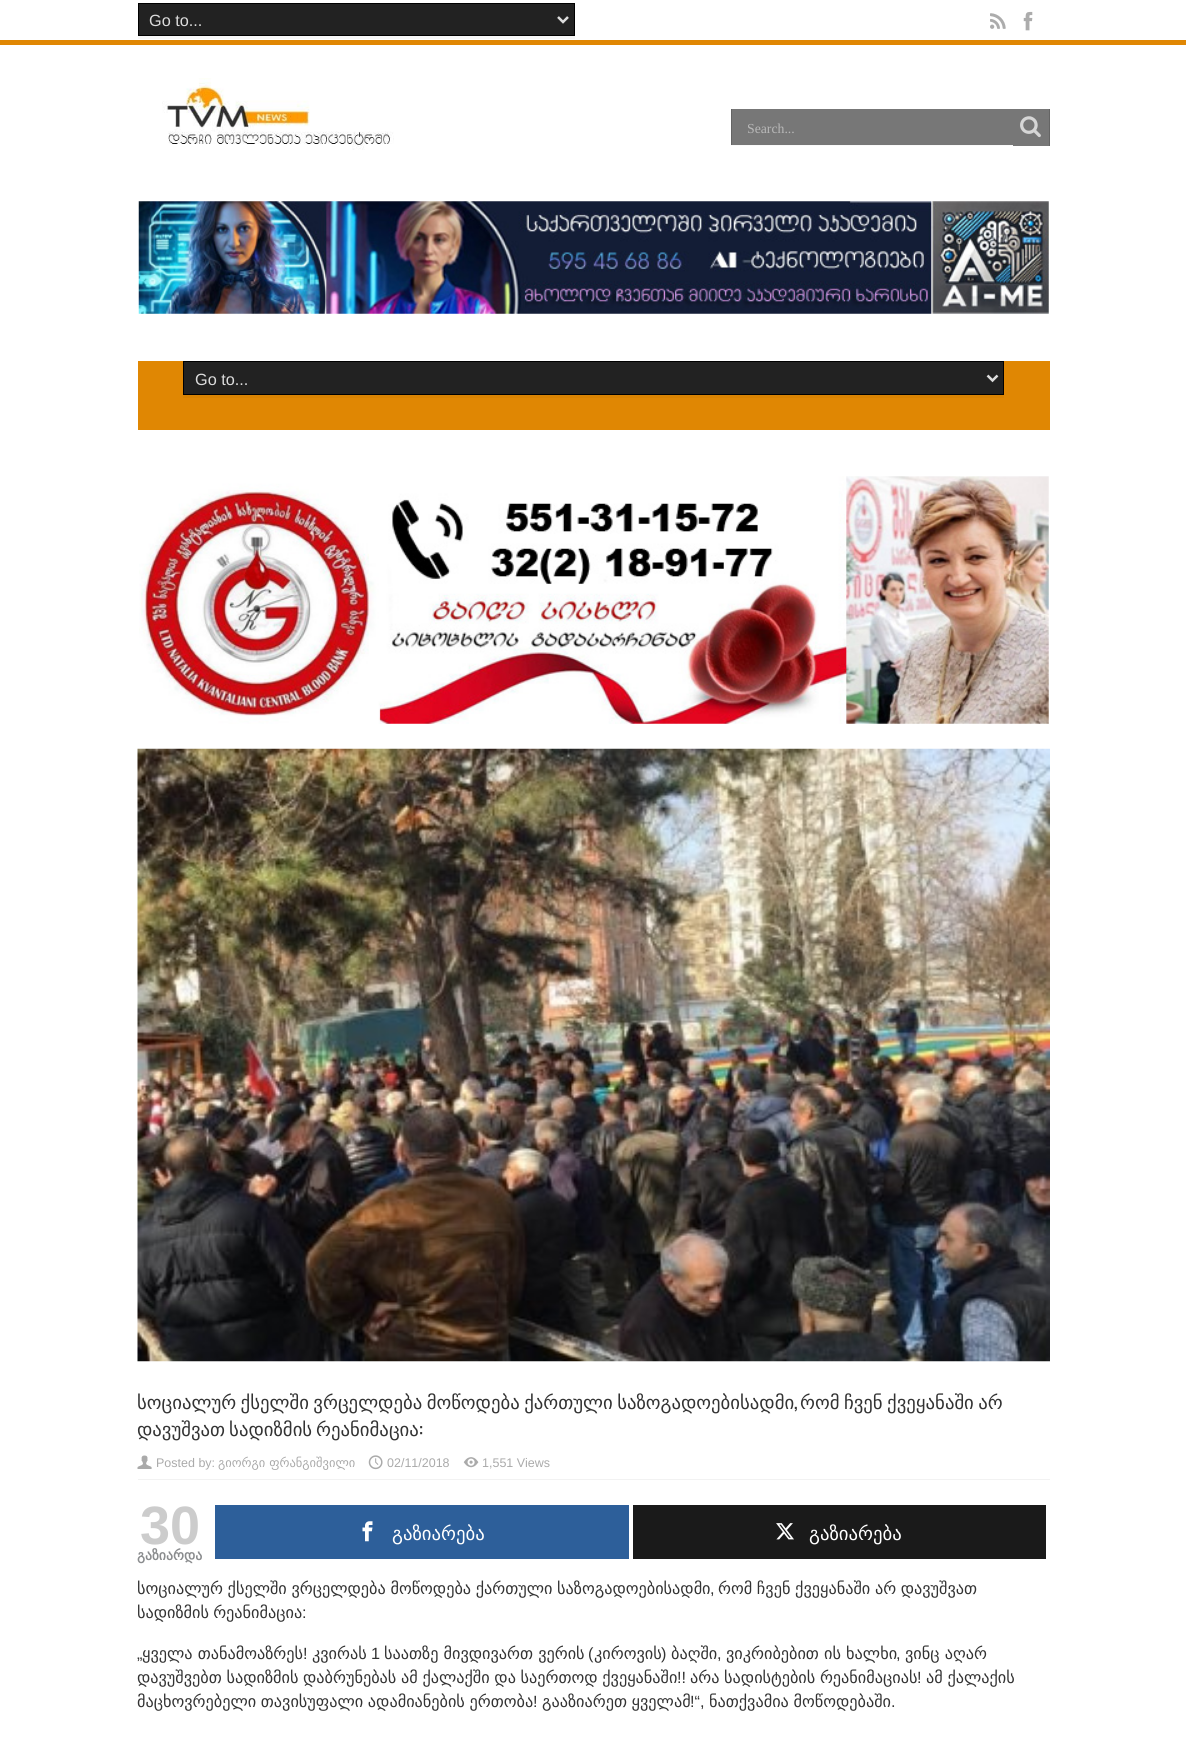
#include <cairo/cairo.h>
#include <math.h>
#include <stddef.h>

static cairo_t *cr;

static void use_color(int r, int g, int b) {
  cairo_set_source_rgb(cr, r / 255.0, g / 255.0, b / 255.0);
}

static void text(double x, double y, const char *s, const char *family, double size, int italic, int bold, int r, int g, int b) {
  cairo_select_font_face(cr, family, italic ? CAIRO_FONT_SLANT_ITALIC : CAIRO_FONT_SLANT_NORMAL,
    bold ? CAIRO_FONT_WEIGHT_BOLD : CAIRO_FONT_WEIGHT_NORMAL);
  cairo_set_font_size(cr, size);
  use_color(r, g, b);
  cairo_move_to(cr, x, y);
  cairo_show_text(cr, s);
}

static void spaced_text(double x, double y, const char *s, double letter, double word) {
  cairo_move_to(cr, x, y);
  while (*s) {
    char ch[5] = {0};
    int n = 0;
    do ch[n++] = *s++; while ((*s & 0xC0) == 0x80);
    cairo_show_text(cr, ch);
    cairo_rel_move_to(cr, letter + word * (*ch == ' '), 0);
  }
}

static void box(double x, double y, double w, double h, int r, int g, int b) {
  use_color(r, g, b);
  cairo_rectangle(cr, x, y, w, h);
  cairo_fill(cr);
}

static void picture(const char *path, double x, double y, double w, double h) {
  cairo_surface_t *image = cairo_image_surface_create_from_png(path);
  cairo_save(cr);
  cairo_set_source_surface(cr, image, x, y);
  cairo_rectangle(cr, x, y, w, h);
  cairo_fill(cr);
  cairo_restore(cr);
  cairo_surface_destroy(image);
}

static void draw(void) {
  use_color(255, 255, 255);
  cairo_paint(cr);
  box(0, 40, 1186, 5, 224, 135, 3);
  box(138, 36, 437, 3, 247, 247, 247);
  use_color(34, 34, 34);
  cairo_rectangle(cr, 138.5, 3.5, 436, 32);
  cairo_fill_preserve(cr);
  use_color(0, 0, 0);
  cairo_set_line_width(cr, 1);
  cairo_stroke(cr);
  cairo_new_path(cr);
  cairo_move_to(cr, 558, 17);
  cairo_line_to(cr, 563, 22);
  cairo_line_to(cr, 568, 17);
  use_color(221, 221, 221);
  cairo_set_line_width(cr, 2.5);
  cairo_stroke(cr);
  picture("img_01.png", 990, 13, 16, 16);
  picture("img_02.png", 1023, 11, 10, 20);
  cairo_save(cr);
  cairo_rectangle(cr, 731, 109, 319, 37);
  cairo_clip(cr);
  use_color(250, 250, 250);
  cairo_new_path(cr);
  cairo_move_to(cr, 731, 111);
  cairo_line_to(cr, 731, 148);
  cairo_line_to(cr, 1013, 148);
  cairo_line_to(cr, 1013, 111);
  cairo_line_to(cr, 1012, 111);
  cairo_line_to(cr, 1012, 145);
  cairo_line_to(cr, 731, 145);
  cairo_close_path(cr);
  cairo_fill(cr);
  cairo_restore(cr);
  box(732, 109, 281, 36, 119, 119, 119);
  box(731, 109, 1, 36, 100, 100, 100);
  box(1013, 109, 36, 37, 119, 119, 119);
  box(1049, 109, 1, 37, 100, 100, 100);
  picture("img_03.png", 1020, 116, 21, 22);
  picture("img_04.png", 162, 78, 232, 72);
  picture("img_05.png", 138, 201, 911, 113);
  box(138, 361, 912, 69, 224, 135, 3);
  use_color(217, 131, 3);
  cairo_new_path(cr);
  cairo_move_to(cr, 183, 395);
  cairo_line_to(cr, 183, 398);
  cairo_line_to(cr, 1004, 398);
  cairo_line_to(cr, 1004, 364);
  cairo_line_to(cr, 1004, 395);
  cairo_close_path(cr);
  cairo_fill(cr);
  use_color(34, 34, 34);
  cairo_rectangle(cr, 183.5, 361.5, 820, 33);
  cairo_fill_preserve(cr);
  use_color(0, 0, 0);
  cairo_set_line_width(cr, 1);
  cairo_stroke(cr);
  cairo_new_path(cr);
  cairo_move_to(cr, 987.5, 375.5);
  cairo_line_to(cr, 992.5, 380.5);
  cairo_line_to(cr, 997.5, 375.5);
  use_color(221, 221, 221);
  cairo_set_line_width(cr, 2.5);
  cairo_stroke(cr);
  picture("img_06.png", 139, 476, 910, 248);
  picture("img_07.png", 137, 748, 913, 614);
  box(138, 1479, 912, 1, 242, 242, 242);
  picture("img_08.png", 137, 1455, 15, 14);
  picture("img_09.png", 368, 1455, 15, 15);
  picture("img_10.png", 463, 1457, 16, 11);
  box(215, 1505, 414, 54, 45, 95, 154);
  picture("img_11.png", 362, 1521, 11, 21);
  box(633, 1505, 413, 54, 26, 26, 26);
  picture("img_12.png", 776, 1523, 18, 17);
  text(149, 26, "Go to...", "Liberation Sans", 16.25, 0, 0, 221, 221, 221);
  cairo_save(cr);
  cairo_rectangle(cr, 748, 120, 250, 15);
  cairo_clip(cr);
  text(747, 133, "Search...", "Liberation Serif", 13.75, 0, 0, 184, 184, 184);
  cairo_restore(cr);
  text(195, 385, "Go to...", "Liberation Sans", 16.25, 0, 0, 221, 221, 221);
  cairo_select_font_face(cr, "DejaVu Sans", CAIRO_FONT_SLANT_NORMAL, CAIRO_FONT_WEIGHT_NORMAL);
  cairo_set_font_size(cr, 18.75);
  use_color(51, 51, 51);
  spaced_text(137, 1409, "სოციალურ ქსელში ვრცელდება მოწოდება ქართული საზოგადოებისადმი", 0, -1.5);
  text(794, 1409, ",", "Oswald", 18.75, 0, 0, 51, 51, 51);
  cairo_select_font_face(cr, "DejaVu Sans", CAIRO_FONT_SLANT_NORMAL, CAIRO_FONT_WEIGHT_NORMAL);
  spaced_text(800, 1409, "რომ ჩვენ ქვეყანაში არ", 0, -1.5);
  spaced_text(137, 1436, "დავუშვათ სადიზმის რეანიმაცია", 0, -2);
  text(419, 1436, ":", "Oswald", 18.75, 0, 0, 51, 51, 51);
  text(156, 1467, "Posted by:", "Liberation Sans", 12.5, 0, 0, 170, 170, 170);
  text(218, 1467, "გიორგი ფრანგიშვილი", "DejaVu Sans", 12.5, 0, 0, 170, 170, 170);
  text(387, 1467, "02/11/2018", "Liberation Sans", 12.5, 0, 0, 170, 170, 170);
  text(482, 1467, "1,551 Views", "Liberation Sans", 12.5, 0, 0, 170, 170, 170);
  text(140, 1544, "30", "Liberation Sans", 54, 0, 1, 204, 204, 204);
  text(137, 1560, "გაზიარდა", "DejaVu Sans", 13.75, 0, 1, 138, 140, 142);
  text(392, 1540, "გაზიარება", "DejaVu Sans", 18.75, 0, 0, 255, 255, 255);
  text(809, 1540, "გაზიარება", "DejaVu Sans", 18.75, 0, 0, 255, 255, 255);
  cairo_set_font_size(cr, 16.25);
  use_color(51, 51, 51);
  spaced_text(137, 1594, "სოციალურ ქსელში ვრცელდება მოწოდება ქართული საზოგადოებისადმი", 0, -0.5);
  text(710, 1594, ",", "Liberation Sans", 16.25, 0, 0, 51, 51, 51);
  cairo_select_font_face(cr, "DejaVu Sans", CAIRO_FONT_SLANT_NORMAL, CAIRO_FONT_WEIGHT_NORMAL);
  spaced_text(718, 1594, "რომ ჩვენ ქვეყანაში არ დავუშვათ", 0, -0.5);
  spaced_text(137, 1618, "სადიზმის რეანიმაცია", 0, -1);
  text(302, 1618, ":", "Liberation Sans", 16.25, 0, 0, 51, 51, 51);
  text(137, 1659, "„", "Liberation Sans", 16.25, 0, 0, 51, 51, 51);
  text(142, 1659, "ყველა თანამოაზრეს", "DejaVu Sans", 16.25, 0, 0, 51, 51, 51);
  text(303, 1659, "!", "Liberation Sans", 16.25, 0, 0, 51, 51, 51);
  text(312, 1659, "კვირას", "DejaVu Sans", 16.25, 0, 0, 51, 51, 51);
  text(371, 1659, "1", "Liberation Sans", 16.25, 0, 0, 51, 51, 51);
  text(384, 1659, "საათზე მივდივართ ვერის", "DejaVu Sans", 16.25, 0, 0, 51, 51, 51);
  text(588, 1659, "(", "Liberation Sans", 16.25, 0, 0, 51, 51, 51);
  text(594, 1659, "კიროვის", "DejaVu Sans", 16.25, 0, 0, 51, 51, 51);
  text(661, 1659, ")", "Liberation Sans", 16.25, 0, 0, 51, 51, 51);
  text(671, 1659, "ბაღში", "DejaVu Sans", 16.25, 0, 0, 51, 51, 51);
  text(717, 1659, ",", "Liberation Sans", 16.25, 0, 0, 51, 51, 51);
  text(726, 1659, "ვიკრიბებით ის ხალხი", "DejaVu Sans", 16.25, 0, 0, 51, 51, 51);
  text(896, 1659, ",", "Liberation Sans", 16.25, 0, 0, 51, 51, 51);
  text(905, 1659, "ვინც აღარ", "DejaVu Sans", 16.25, 0, 0, 51, 51, 51);
  spaced_text(137, 1683, "დავუშვებთ სადიზმის დაბრუნებას ამ ქალაქში და საერთოდ ქვეყანაში", 0, -0.5);
  text(677, 1683, "!!", "Liberation Sans", 16.25, 0, 0, 51, 51, 51);
  cairo_select_font_face(cr, "DejaVu Sans", CAIRO_FONT_SLANT_NORMAL, CAIRO_FONT_WEIGHT_NORMAL);
  spaced_text(690, 1683, "არა სადისტების რეანიმაციას", 0, -0.5);
  text(917, 1683, "!", "Liberation Sans", 16.25, 0, 0, 51, 51, 51);
  cairo_select_font_face(cr, "DejaVu Sans", CAIRO_FONT_SLANT_NORMAL, CAIRO_FONT_WEIGHT_NORMAL);
  spaced_text(926, 1683, "ამ ქალაქის", 0, -0.5);
  spaced_text(137, 1707, "მაცხოვრებელი თავისუფალი ადამიანების ერთობა", 0, -0.5);
  text(533, 1707, "!", "Liberation Sans", 16.25, 0, 0, 51, 51, 51);
  cairo_select_font_face(cr, "DejaVu Sans", CAIRO_FONT_SLANT_NORMAL, CAIRO_FONT_WEIGHT_NORMAL);
  spaced_text(542, 1707, "გააზიარეთ ყველამ", 0, -0.5);
  text(690, 1707, "!“,", "Liberation Sans", 16.25, 0, 0, 51, 51, 51);
  cairo_select_font_face(cr, "DejaVu Sans", CAIRO_FONT_SLANT_NORMAL, CAIRO_FONT_WEIGHT_NORMAL);
  spaced_text(709, 1707, "ნათქვამია მოწოდებაში", 0, -0.5);
  text(891, 1707, ".", "Liberation Sans", 16.25, 0, 0, 51, 51, 51);
}

int main(void) {
  cairo_surface_t *surface = cairo_image_surface_create(CAIRO_FORMAT_RGB24, 1186, 1745);
  cr = cairo_create(surface);
  cairo_font_options_t *options = cairo_font_options_create();
  cairo_font_options_set_hint_metrics(options, CAIRO_HINT_METRICS_OFF);
  cairo_font_options_set_hint_style(options, CAIRO_HINT_STYLE_NONE);
  cairo_set_font_options(cr, options);
  cairo_set_miter_limit(cr, 4);
  draw();
  cairo_surface_write_to_png(surface, "out.png");
  cairo_font_options_destroy(options);
  cairo_destroy(cr);
  cairo_surface_destroy(surface);
  return 0;
}
